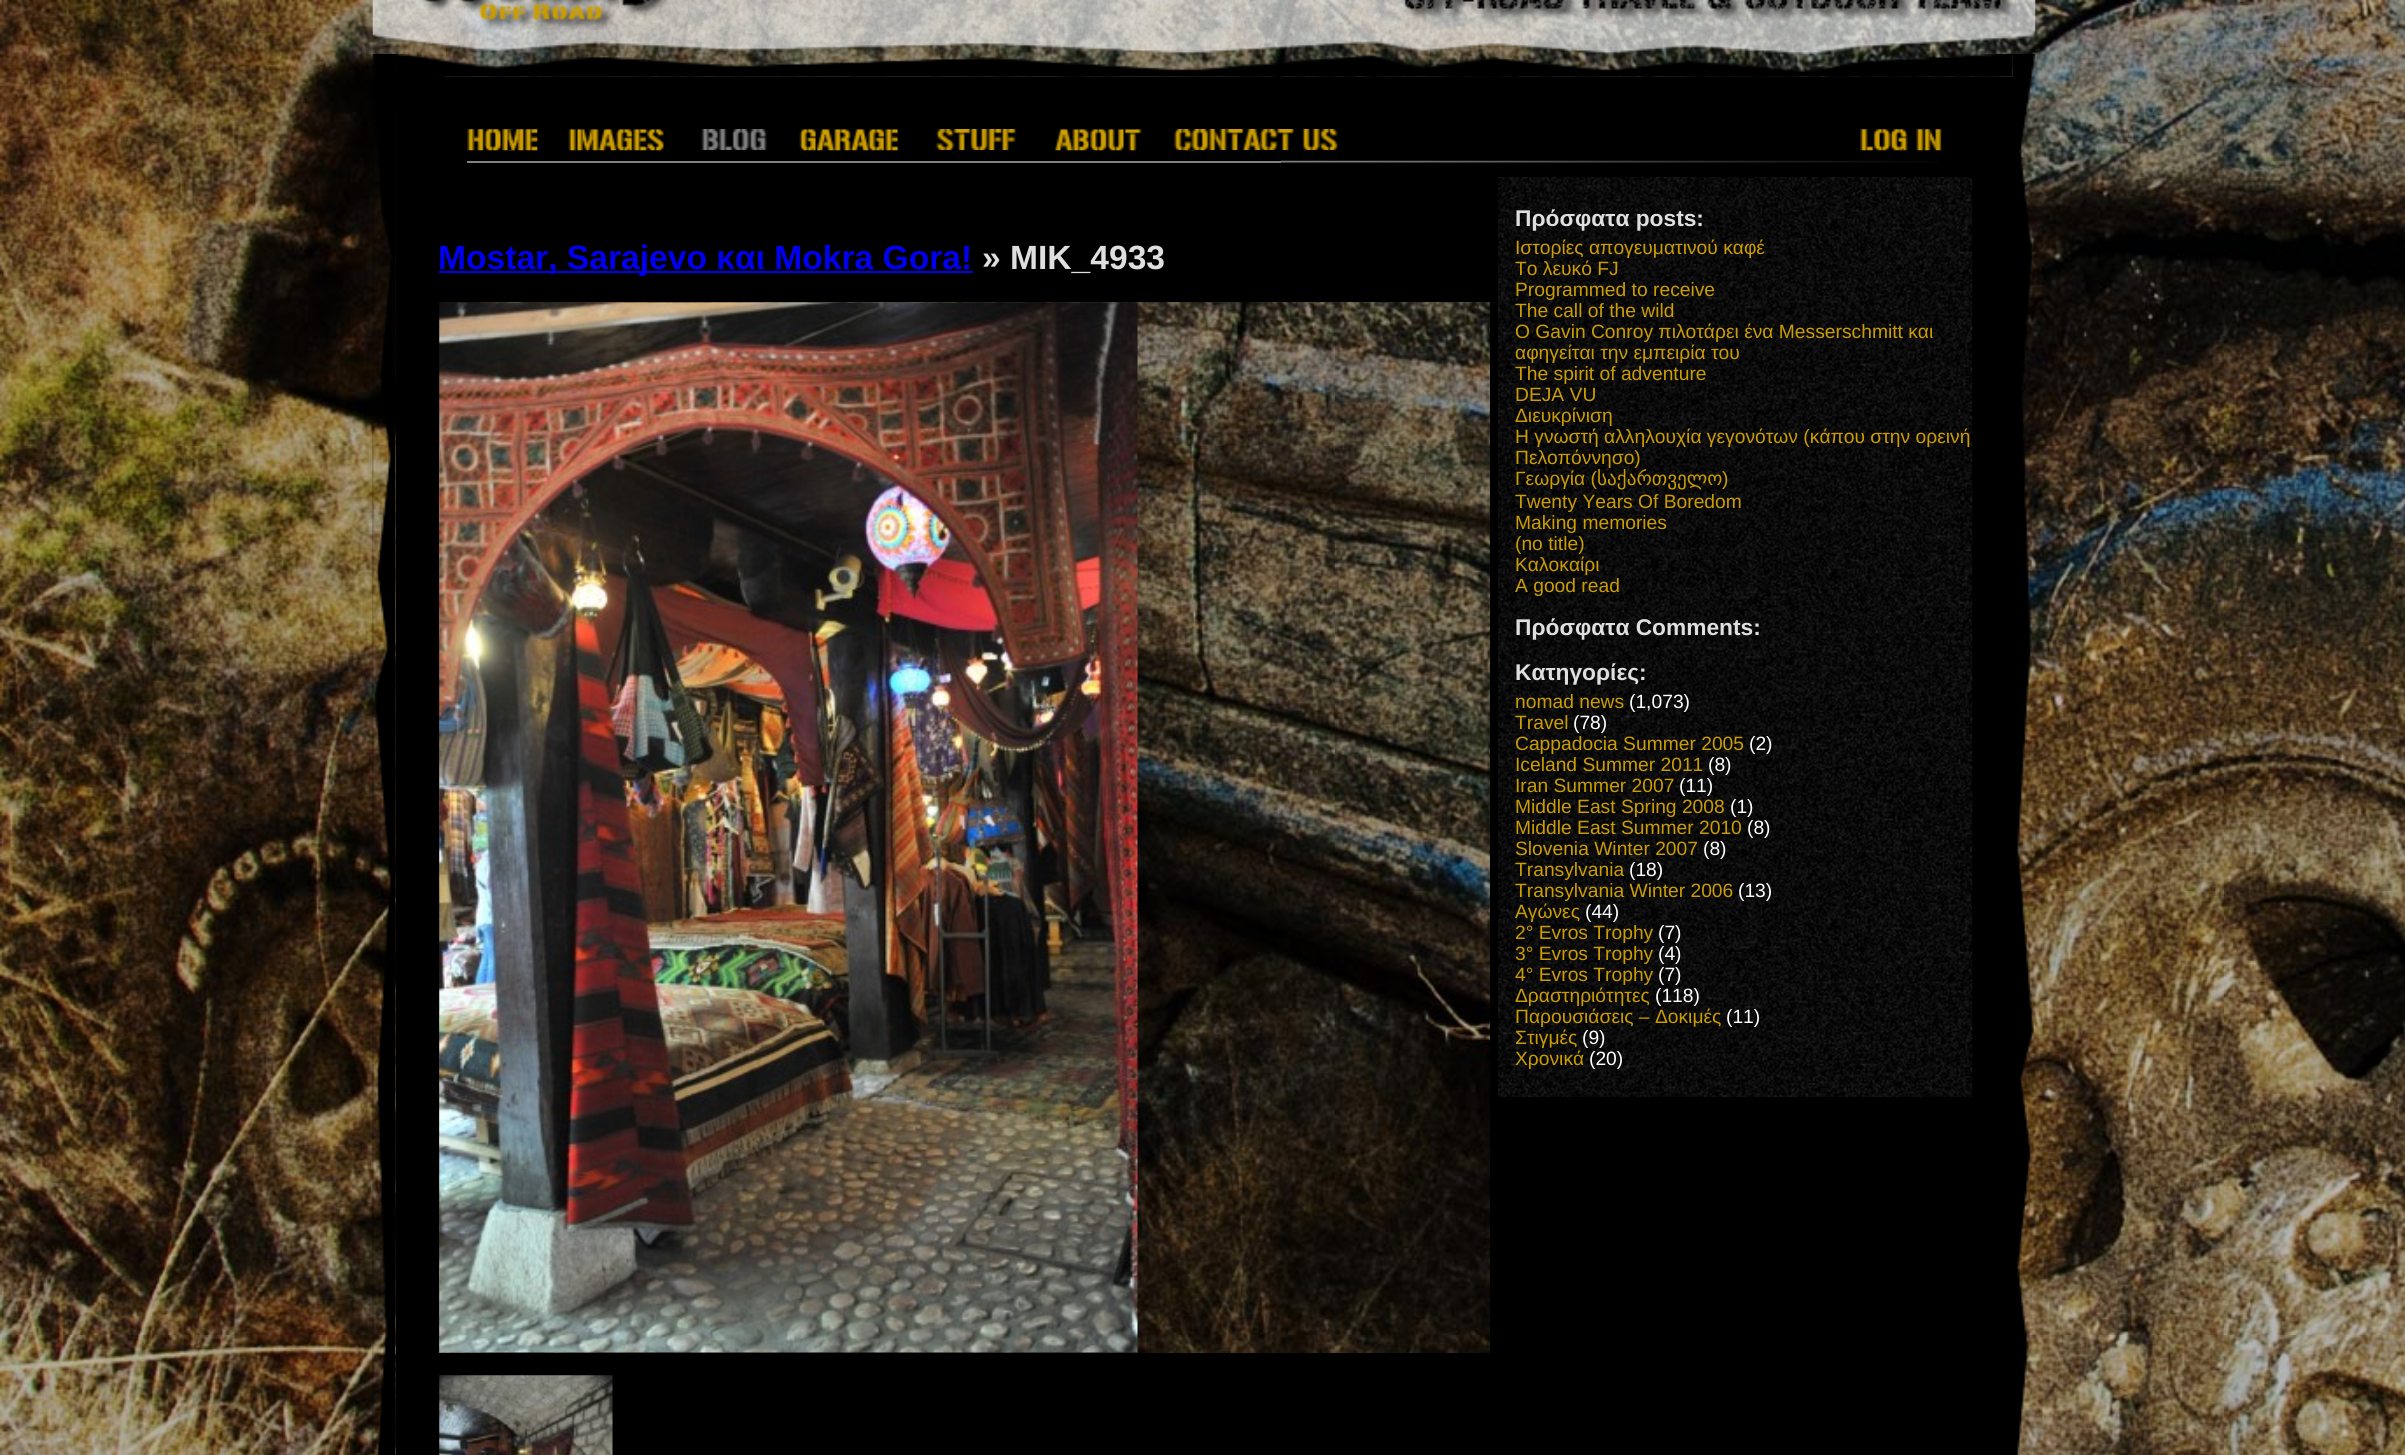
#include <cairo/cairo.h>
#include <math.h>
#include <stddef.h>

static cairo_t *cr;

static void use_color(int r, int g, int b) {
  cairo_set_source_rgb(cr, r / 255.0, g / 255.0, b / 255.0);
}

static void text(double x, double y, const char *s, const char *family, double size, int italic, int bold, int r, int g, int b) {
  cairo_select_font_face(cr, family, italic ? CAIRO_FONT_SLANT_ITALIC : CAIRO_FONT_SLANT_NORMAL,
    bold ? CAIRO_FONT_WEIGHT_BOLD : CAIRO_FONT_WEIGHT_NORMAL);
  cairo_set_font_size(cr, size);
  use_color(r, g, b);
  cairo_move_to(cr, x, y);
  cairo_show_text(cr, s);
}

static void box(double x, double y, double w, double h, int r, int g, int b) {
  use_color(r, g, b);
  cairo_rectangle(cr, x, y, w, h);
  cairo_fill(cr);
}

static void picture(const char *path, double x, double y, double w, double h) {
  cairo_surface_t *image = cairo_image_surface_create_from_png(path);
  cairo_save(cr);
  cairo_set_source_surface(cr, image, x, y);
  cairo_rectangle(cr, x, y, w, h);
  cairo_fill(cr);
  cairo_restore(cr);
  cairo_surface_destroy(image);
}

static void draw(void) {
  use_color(255, 255, 255);
  cairo_paint(cr);
  picture("img_01.png", 0, 0, 2405, 1455);
  picture("img_02.png", 372, 0, 1664, 54);
  picture("img_03.png", 423, 0, 246, 30);
  picture("img_04.png", 372, 54, 26, 1401);
  picture("img_05.png", 2012, 54, 24, 1401);
  picture("img_06.png", 396, 54, 1617, 23);
  box(396, 77, 1617, 1378, 0, 0, 0);
  picture("img_08.png", 507, 129, 157, 22);
  picture("img_07.png", 467, 129, 71, 22);
  picture("img_09.png", 701, 129, 66, 21);
  picture("img_10.png", 799, 129, 99, 22);
  picture("img_12.png", 1054, 129, 150, 22);
  box(1054, 146, 1, 4, 0, 0, 0);
  picture("img_11.png", 897, 129, 159, 21);
  picture("img_13.png", 1173, 129, 165, 21);
  picture("img_14.png", 1860, 129, 82, 22);
  box(467, 161, 814, 2, 128, 128, 128);
  picture("img_15.png", 1281, 160, 657, 3);
  box(439, 271, 534, 2, 0, 0, 238);
  picture("img_16.png", 439, 302, 1051, 1051);
  picture("img_17.png", 439, 302, 699, 1051);
  picture("img_18.png", 439, 1375, 174, 80);
  picture("img_19.png", 1498, 177, 475, 920);
  text(438, 269, "Mostar, Sarajevo και Mokra Gora!", "Liberation Sans", 33.6, 0, 1, 0, 0, 238);
  text(982, 269, "» MIK_4933", "Liberation Sans", 33.6, 0, 1, 223, 223, 223);
  text(1515, 226, "Πρόσφατα posts:", "Liberation Sans", 22.75, 0, 1, 223, 223, 223);
  text(1515, 254, "Ιστορίες απογευματινού καφέ", "Liberation Sans", 19.25, 0, 0, 203, 157, 1);
  text(1515, 275, "Το λευκό FJ", "Liberation Sans", 19.25, 0, 0, 203, 157, 1);
  text(1515, 296, "Programmed to receive", "Liberation Sans", 19.25, 0, 0, 203, 157, 1);
  text(1515, 317, "The call of the wild", "Liberation Sans", 19.25, 0, 0, 203, 157, 1);
  text(1515, 338, "O Gavin Conroy πιλοτάρει ένα Messerschmitt και", "Liberation Sans", 19.25, 0, 0, 203, 157, 1);
  text(1515, 359, "αφηγείται την εμπειρία του", "Liberation Sans", 19.25, 0, 0, 203, 157, 1);
  text(1515, 380, "The spirit of adventure", "Liberation Sans", 19.25, 0, 0, 203, 157, 1);
  text(1515, 401, "DEJA VU", "Liberation Sans", 19.25, 0, 0, 203, 157, 1);
  text(1515, 422, "Διευκρίνιση", "Liberation Sans", 19.25, 0, 0, 203, 157, 1);
  text(1515, 443, "Η γνωστή αλληλουχία γεγονότων (κάπου στην ορεινή", "Liberation Sans", 19.25, 0, 0, 203, 157, 1);
  text(1515, 464, "Πελοπόννησο)", "Liberation Sans", 19.25, 0, 0, 203, 157, 1);
  text(1515, 485, "Γεωργία (", "Liberation Sans", 19.25, 0, 0, 203, 157, 1);
  text(1597, 485, "საქართველო", "DejaVu Sans", 19.25, 0, 0, 203, 157, 1);
  text(1722, 485, ")", "Liberation Sans", 19.25, 0, 0, 203, 157, 1);
  text(1515, 508, "Twenty Years Of Boredom", "Liberation Sans", 19.25, 0, 0, 203, 157, 1);
  text(1515, 529, "Making memories", "Liberation Sans", 19.25, 0, 0, 203, 157, 1);
  text(1515, 550, "(no title)", "Liberation Sans", 19.25, 0, 0, 203, 157, 1);
  text(1515, 571, "Καλοκαίρι", "Liberation Sans", 19.25, 0, 0, 203, 157, 1);
  text(1515, 592, "A good read", "Liberation Sans", 19.25, 0, 0, 203, 157, 1);
  text(1515, 635, "Πρόσφατα Comments:", "Liberation Sans", 22.75, 0, 1, 223, 223, 223);
  text(1515, 680, "Κατηγορίες:", "Liberation Sans", 22.75, 0, 1, 223, 223, 223);
  text(1515, 708, "nomad news", "Liberation Sans", 19.25, 0, 0, 203, 157, 1);
  text(1629, 708, "(1,073)", "Liberation Sans", 19.25, 0, 0, 255, 255, 255);
  text(1515, 729, "Travel", "Liberation Sans", 19.25, 0, 0, 203, 157, 1);
  text(1573, 729, "(78)", "Liberation Sans", 19.25, 0, 0, 255, 255, 255);
  text(1515, 750, "Cappadocia Summer 2005", "Liberation Sans", 19.25, 0, 0, 203, 157, 1);
  text(1749, 750, "(2)", "Liberation Sans", 19.25, 0, 0, 255, 255, 255);
  text(1515, 771, "Iceland Summer 2011", "Liberation Sans", 19.25, 0, 0, 203, 157, 1);
  text(1708, 771, "(8)", "Liberation Sans", 19.25, 0, 0, 255, 255, 255);
  text(1515, 792, "Iran Summer 2007", "Liberation Sans", 19.25, 0, 0, 203, 157, 1);
  text(1679, 792, "(11)", "Liberation Sans", 19.25, 0, 0, 255, 255, 255);
  text(1515, 813, "Middle East Spring 2008", "Liberation Sans", 19.25, 0, 0, 203, 157, 1);
  text(1730, 813, "(1)", "Liberation Sans", 19.25, 0, 0, 255, 255, 255);
  text(1515, 834, "Middle East Summer 2010", "Liberation Sans", 19.25, 0, 0, 203, 157, 1);
  text(1747, 834, "(8)", "Liberation Sans", 19.25, 0, 0, 255, 255, 255);
  text(1515, 855, "Slovenia Winter 2007", "Liberation Sans", 19.25, 0, 0, 203, 157, 1);
  text(1703, 855, "(8)", "Liberation Sans", 19.25, 0, 0, 255, 255, 255);
  text(1515, 876, "Transylvania", "Liberation Sans", 19.25, 0, 0, 203, 157, 1);
  text(1629, 876, "(18)", "Liberation Sans", 19.25, 0, 0, 255, 255, 255);
  text(1515, 897, "Transylvania Winter 2006", "Liberation Sans", 19.25, 0, 0, 203, 157, 1);
  text(1738, 897, "(13)", "Liberation Sans", 19.25, 0, 0, 255, 255, 255);
  text(1515, 918, "Αγώνες", "Liberation Sans", 19.25, 0, 0, 203, 157, 1);
  text(1585, 918, "(44)", "Liberation Sans", 19.25, 0, 0, 255, 255, 255);
  text(1515, 939, "2° Evros Trophy", "Liberation Sans", 19.25, 0, 0, 203, 157, 1);
  text(1658, 939, "(7)", "Liberation Sans", 19.25, 0, 0, 255, 255, 255);
  text(1515, 960, "3° Evros Trophy", "Liberation Sans", 19.25, 0, 0, 203, 157, 1);
  text(1658, 960, "(4)", "Liberation Sans", 19.25, 0, 0, 255, 255, 255);
  text(1515, 981, "4° Evros Trophy", "Liberation Sans", 19.25, 0, 0, 203, 157, 1);
  text(1658, 981, "(7)", "Liberation Sans", 19.25, 0, 0, 255, 255, 255);
  text(1515, 1002, "Δραστηριότητες", "Liberation Sans", 19.25, 0, 0, 203, 157, 1);
  text(1655, 1002, "(118)", "Liberation Sans", 19.25, 0, 0, 255, 255, 255);
  text(1515, 1023, "Παρουσιάσεις – Δοκιμές", "Liberation Sans", 19.25, 0, 0, 203, 157, 1);
  text(1726, 1023, "(11)", "Liberation Sans", 19.25, 0, 0, 255, 255, 255);
  text(1515, 1044, "Στιγμές", "Liberation Sans", 19.25, 0, 0, 203, 157, 1);
  text(1582, 1044, "(9)", "Liberation Sans", 19.25, 0, 0, 255, 255, 255);
  text(1515, 1065, "Χρονικά", "Liberation Sans", 19.25, 0, 0, 203, 157, 1);
  text(1589, 1065, "(20)", "Liberation Sans", 19.25, 0, 0, 255, 255, 255);
}

int main(void) {
  cairo_surface_t *surface = cairo_image_surface_create(CAIRO_FORMAT_RGB24, 2405, 1455);
  cr = cairo_create(surface);
  cairo_font_options_t *options = cairo_font_options_create();
  cairo_font_options_set_hint_metrics(options, CAIRO_HINT_METRICS_OFF);
  cairo_font_options_set_hint_style(options, CAIRO_HINT_STYLE_NONE);
  cairo_set_font_options(cr, options);
  cairo_set_miter_limit(cr, 4);
  draw();
  cairo_surface_write_to_png(surface, "out.png");
  cairo_font_options_destroy(options);
  cairo_destroy(cr);
  cairo_surface_destroy(surface);
  return 0;
}
